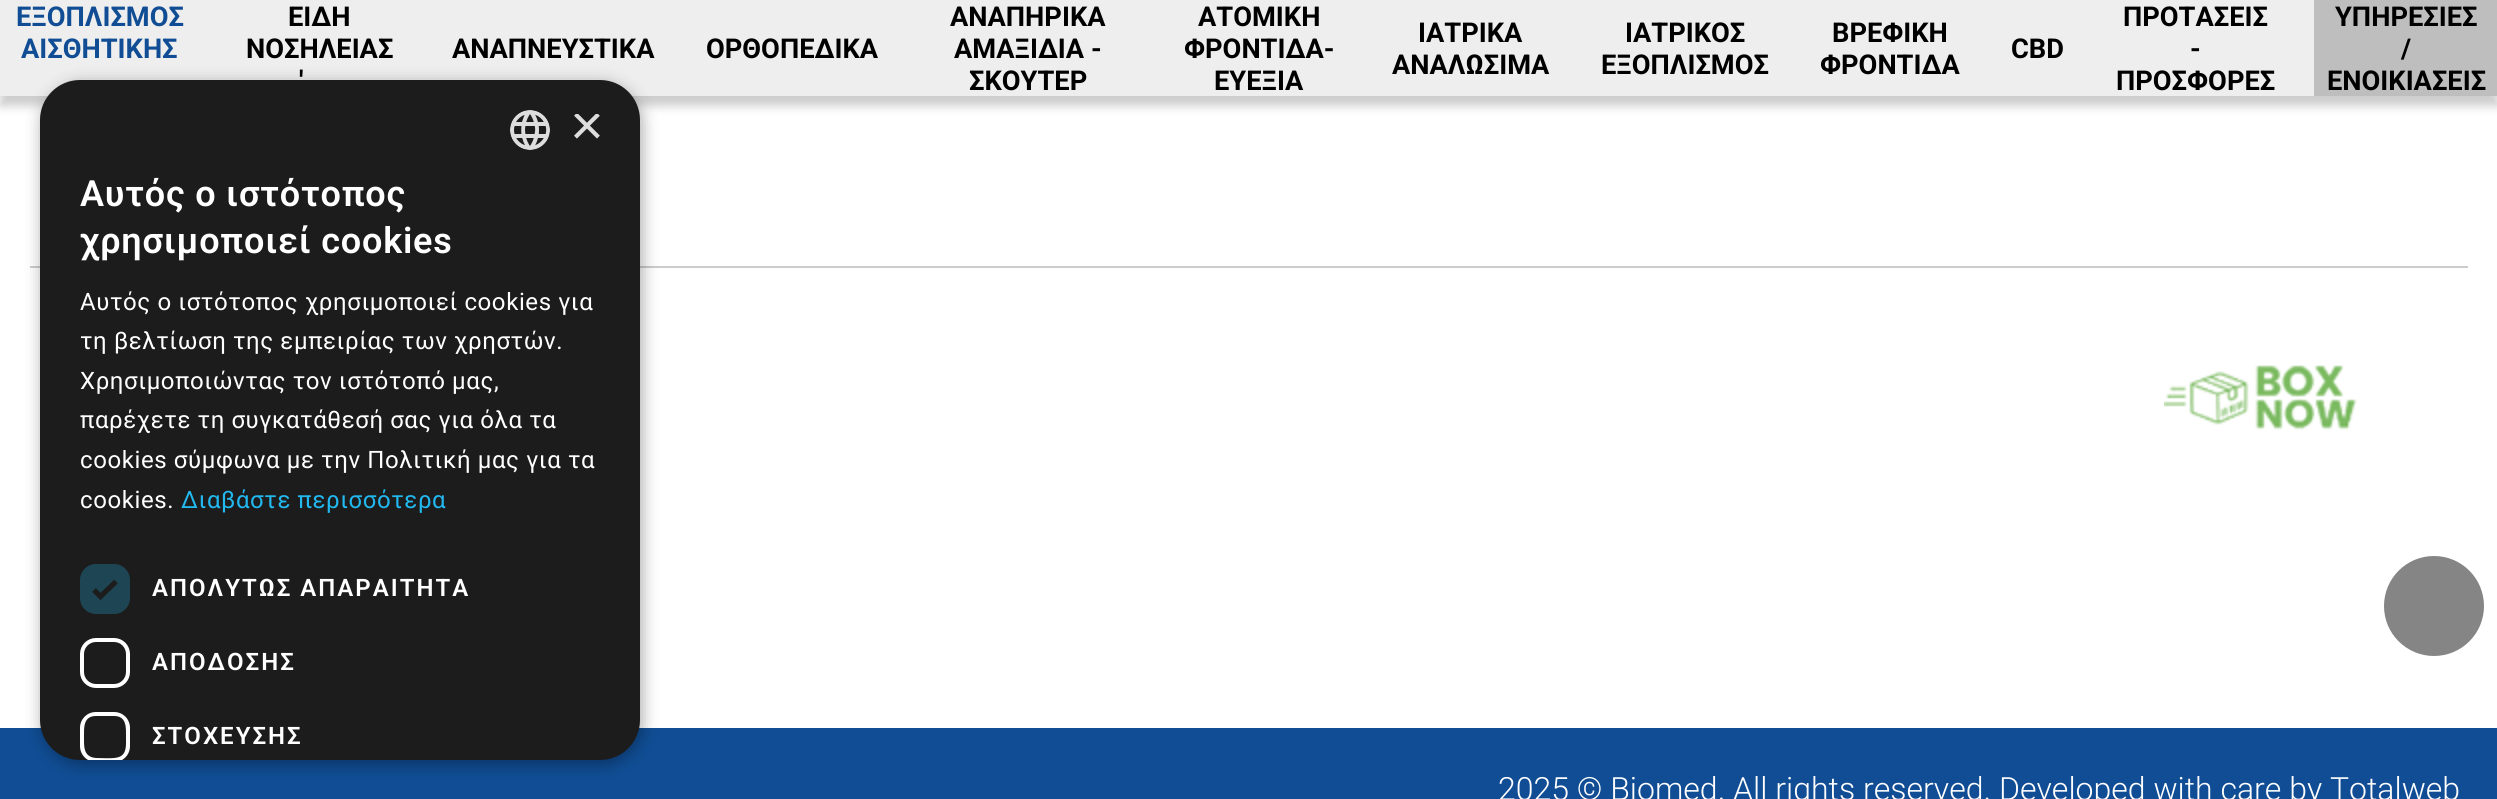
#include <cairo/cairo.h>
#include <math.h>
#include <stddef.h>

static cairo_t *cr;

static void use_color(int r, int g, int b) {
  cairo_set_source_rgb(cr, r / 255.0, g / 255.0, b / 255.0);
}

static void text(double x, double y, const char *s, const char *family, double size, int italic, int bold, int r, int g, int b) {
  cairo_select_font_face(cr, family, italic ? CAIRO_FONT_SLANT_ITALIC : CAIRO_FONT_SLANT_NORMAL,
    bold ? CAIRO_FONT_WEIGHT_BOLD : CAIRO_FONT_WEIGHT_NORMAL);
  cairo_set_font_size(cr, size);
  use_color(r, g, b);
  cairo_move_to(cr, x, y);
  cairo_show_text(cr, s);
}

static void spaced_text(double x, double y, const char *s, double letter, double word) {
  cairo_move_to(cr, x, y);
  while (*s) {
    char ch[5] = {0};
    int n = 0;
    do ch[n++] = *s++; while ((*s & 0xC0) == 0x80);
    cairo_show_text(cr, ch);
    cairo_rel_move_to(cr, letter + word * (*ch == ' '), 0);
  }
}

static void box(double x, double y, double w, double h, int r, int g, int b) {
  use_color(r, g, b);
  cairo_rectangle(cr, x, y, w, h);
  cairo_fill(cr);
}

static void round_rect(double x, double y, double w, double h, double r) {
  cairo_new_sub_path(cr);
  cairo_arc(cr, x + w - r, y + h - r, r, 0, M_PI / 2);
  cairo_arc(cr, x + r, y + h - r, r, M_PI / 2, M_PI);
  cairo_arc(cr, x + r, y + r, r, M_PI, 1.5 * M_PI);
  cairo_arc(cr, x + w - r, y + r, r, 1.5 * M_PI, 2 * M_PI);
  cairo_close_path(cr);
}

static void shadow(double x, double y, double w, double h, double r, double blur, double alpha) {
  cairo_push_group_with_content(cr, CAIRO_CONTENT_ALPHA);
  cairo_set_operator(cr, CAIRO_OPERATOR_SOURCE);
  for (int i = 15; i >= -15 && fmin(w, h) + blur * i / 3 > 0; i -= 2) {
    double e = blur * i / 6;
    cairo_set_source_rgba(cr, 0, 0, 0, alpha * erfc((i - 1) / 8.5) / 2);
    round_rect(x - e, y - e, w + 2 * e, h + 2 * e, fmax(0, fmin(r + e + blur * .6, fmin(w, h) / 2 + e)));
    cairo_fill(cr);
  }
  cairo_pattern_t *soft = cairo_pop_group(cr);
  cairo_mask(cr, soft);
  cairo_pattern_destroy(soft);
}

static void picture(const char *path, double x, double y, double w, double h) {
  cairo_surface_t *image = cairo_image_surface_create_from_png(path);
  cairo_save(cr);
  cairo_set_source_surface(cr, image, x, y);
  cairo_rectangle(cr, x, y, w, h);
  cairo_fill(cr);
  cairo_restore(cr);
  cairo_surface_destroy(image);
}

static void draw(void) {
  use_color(255, 255, 255);
  cairo_paint(cr);
  use_color(0, 0, 0);
  shadow(0, -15, 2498, 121, 0, 5, 0.2);
  box(0, 0, 2314, 96, 238, 238, 238);
  box(2314, 0, 183, 96, 190, 190, 190);
  box(30, 266, 2438, 2, 204, 204, 204);
  box(0, 728, 2497, 71, 16, 77, 148);
  use_color(0, 0, 0);
  shadow(42, 84, 600, 680, 40, 8, 0.35);
  use_color(28, 28, 28);
  round_rect(40, 80, 600, 680, 40);
  cairo_fill(cr);
  picture("img_01.png", 510, 110, 40, 40);
  use_color(30, 69, 83);
  round_rect(80, 564, 50, 50, 16);
  cairo_fill(cr);
  cairo_new_path(cr);
  cairo_move_to(cr, 94, 590);
  cairo_line_to(cr, 100.5, 596.5);
  cairo_line_to(cr, 116, 581.5);
  use_color(28, 28, 28);
  cairo_set_line_width(cr, 5.2);
  cairo_stroke(cr);
  round_rect(82, 640, 46, 46, 14);
  use_color(255, 255, 255);
  cairo_set_line_width(cr, 4);
  cairo_stroke(cr);
  cairo_set_fill_rule(cr, CAIRO_FILL_RULE_EVEN_ODD);
  cairo_new_path(cr);
  cairo_move_to(cr, 96, 712);
  cairo_line_to(cr, 114, 712);
  cairo_curve_to(cr, 123, 712, 130, 719, 130, 728);
  cairo_line_to(cr, 130, 746);
  cairo_curve_to(cr, 130, 752, 127, 757, 122, 760);
  cairo_line_to(cr, 88, 760);
  cairo_curve_to(cr, 83, 757, 80, 752, 80, 746);
  cairo_line_to(cr, 80, 728);
  cairo_curve_to(cr, 80, 719, 87, 712, 96, 712);
  cairo_close_path(cr);
  cairo_move_to(cr, 96, 716);
  cairo_curve_to(cr, 83, 716, 84, 728, 84, 737);
  cairo_curve_to(cr, 84, 746, 83, 757, 96, 758);
  cairo_curve_to(cr, 101, 758, 114, 759, 119, 757);
  cairo_curve_to(cr, 127, 754, 126, 745, 126, 737);
  cairo_curve_to(cr, 126, 728, 127, 716, 114, 716);
  cairo_close_path(cr);
  cairo_fill(cr);
  use_color(133, 133, 133);
  cairo_arc(cr, 2434, 606, 52, 0, 2 * M_PI);
  cairo_fill_preserve(cr);
  use_color(255, 255, 255);
  cairo_stroke(cr);
  picture("img_02.png", 2164, 365, 193, 66);
  text(16, 26, "ΕΞΟΠΛΙΣΜΟΣ", "Roboto", 27.25, 0, 1, 16, 77, 148);
  text(21, 58, "ΑΙΣΘΗΤΙΚΗΣ", "Roboto", 27.25, 0, 1, 16, 77, 148);
  text(288, 26, "ΕΙΔΗ", "Roboto", 27.25, 0, 1, 0, 0, 0);
  text(246, 58, "ΝΟΣΗΛΕΙΑΣ", "Roboto", 27.25, 0, 1, 0, 0, 0);
  text(299, 90, "'", "Roboto", 27.25, 0, 1, 0, 0, 0);
  text(452, 58, "ΑΝΑΠΝΕΥΣΤΙΚΑ", "Roboto", 27.25, 0, 1, 0, 0, 0);
  text(706, 58, "ΟΡΘΟΠΕΔΙΚΑ", "Roboto", 27.25, 0, 1, 0, 0, 0);
  text(950, 26, "ΑΝΑΠΗΡΙΚΑ", "Roboto", 27.25, 0, 1, 0, 0, 0);
  text(954, 58, "ΑΜΑΞΙΔΙΑ -", "Roboto", 27.25, 0, 1, 0, 0, 0);
  text(969, 90, "ΣΚΟΥΤΕΡ", "Roboto", 27.25, 0, 1, 0, 0, 0);
  text(1198, 26, "ΑΤΟΜΙΚΗ", "Roboto", 27.25, 0, 1, 0, 0, 0);
  text(1184, 58, "ΦΡΟΝΤΙΔΑ-", "Roboto", 27.25, 0, 1, 0, 0, 0);
  text(1214, 90, "ΕΥΕΞΙΑ", "Roboto", 27.25, 0, 1, 0, 0, 0);
  text(1418, 42, "ΙΑΤΡΙΚΑ", "Roboto", 27.25, 0, 1, 0, 0, 0);
  text(1392, 74, "ΑΝΑΛΩΣΙΜΑ", "Roboto", 27.25, 0, 1, 0, 0, 0);
  text(1625, 42, "ΙΑΤΡΙΚΟΣ", "Roboto", 27.25, 0, 1, 0, 0, 0);
  text(1601, 74, "ΕΞΟΠΛΙΣΜΟΣ", "Roboto", 27.25, 0, 1, 0, 0, 0);
  text(1832, 42, "ΒΡΕΦΙΚΗ", "Roboto", 27.25, 0, 1, 0, 0, 0);
  text(1820, 74, "ΦΡΟΝΤΙΔΑ", "Roboto", 27.25, 0, 1, 0, 0, 0);
  text(2011, 58, "CBD", "Roboto", 27.25, 0, 1, 0, 0, 0);
  text(2123, 26, "ΠΡΟΤΑΣΕΙΣ", "Roboto", 27.25, 0, 1, 0, 0, 0);
  text(2190, 58, "-", "Roboto", 27.25, 0, 1, 0, 0, 0);
  text(2116, 90, "ΠΡΟΣΦΟΡΕΣ", "Roboto", 27.25, 0, 1, 0, 0, 0);
  text(2335, 26, "ΥΠΗΡΕΣΙΕΣ", "Roboto", 27.25, 0, 1, 0, 0, 0);
  text(2401, 58, "/", "Roboto", 27.25, 0, 1, 0, 0, 0);
  text(2327, 90, "ΕΝΟΙΚΙΑΣΕΙΣ", "Roboto", 27.25, 0, 1, 0, 0, 0);
  cairo_save(cr);
  cairo_set_fill_rule(cr, CAIRO_FILL_RULE_WINDING);
  cairo_rectangle(cr, 570, 114, 30, 30);
  cairo_clip(cr);
  text(570, 145, "×", "Liberation Sans", 58, 0, 0, 221, 221, 221);
  cairo_restore(cr);
  cairo_select_font_face(cr, "Roboto SemiBold", CAIRO_FONT_SLANT_NORMAL, CAIRO_FONT_WEIGHT_NORMAL);
  cairo_set_font_size(cr, 36);
  use_color(255, 255, 255);
  spaced_text(80, 206, "Αυτός ο ιστότοπος", 0.8, 0);
  spaced_text(80, 253, "χρησιμοποιεί cookies", 0.8, 0);
  cairo_select_font_face(cr, "Roboto", CAIRO_FONT_SLANT_NORMAL, CAIRO_FONT_WEIGHT_NORMAL);
  cairo_set_font_size(cr, 24);
  spaced_text(80, 310, "Αυτός ο ιστότοπος χρησιμοποιεί cookies για", 0.6, 0);
  spaced_text(80, 349, "τη βελτίωση της εμπειρίας των χρηστών.", 0.6, 0);
  spaced_text(80, 389, "Χρησιμοποιώντας τον ιστότοπό μας,", 0.6, 0);
  spaced_text(80, 428, "παρέχετε τη συγκατάθεσή σας για όλα τα", 0.6, 0);
  spaced_text(80, 468, "cookies σύμφωνα με την Πολιτική μας για τα", 0.6, 0);
  spaced_text(80, 508, "cookies.", 0.6, 0);
  use_color(34, 184, 240);
  spaced_text(181, 508, "Διαβάστε περισσότερα", 0.6, 0);
  cairo_select_font_face(cr, "Roboto SemiBold", CAIRO_FONT_SLANT_NORMAL, CAIRO_FONT_WEIGHT_NORMAL);
  use_color(255, 255, 255);
  spaced_text(152, 596, "ΑΠΟΛΥΤΩΣ ΑΠΑΡΑΙΤΗΤΑ", 2, 0);
  spaced_text(152, 670, "ΑΠΟΔΟΣΗΣ", 2, 0);
  spaced_text(152, 744, "ΣΤΟΧΕΥΣΗΣ", 2, 0);
  text(1498, 800, "2025 © Biomed. All rights reserved. Developed with care by Totalweb", "Roboto Light", 32, 0, 0, 255, 255, 255);
}

int main(void) {
  cairo_surface_t *surface = cairo_image_surface_create(CAIRO_FORMAT_RGB24, 2497, 799);
  cr = cairo_create(surface);
  cairo_font_options_t *options = cairo_font_options_create();
  cairo_font_options_set_hint_metrics(options, CAIRO_HINT_METRICS_OFF);
  cairo_font_options_set_hint_style(options, CAIRO_HINT_STYLE_NONE);
  cairo_set_font_options(cr, options);
  cairo_set_miter_limit(cr, 4);
  draw();
  cairo_surface_write_to_png(surface, "out.png");
  cairo_font_options_destroy(options);
  cairo_destroy(cr);
  cairo_surface_destroy(surface);
  return 0;
}
